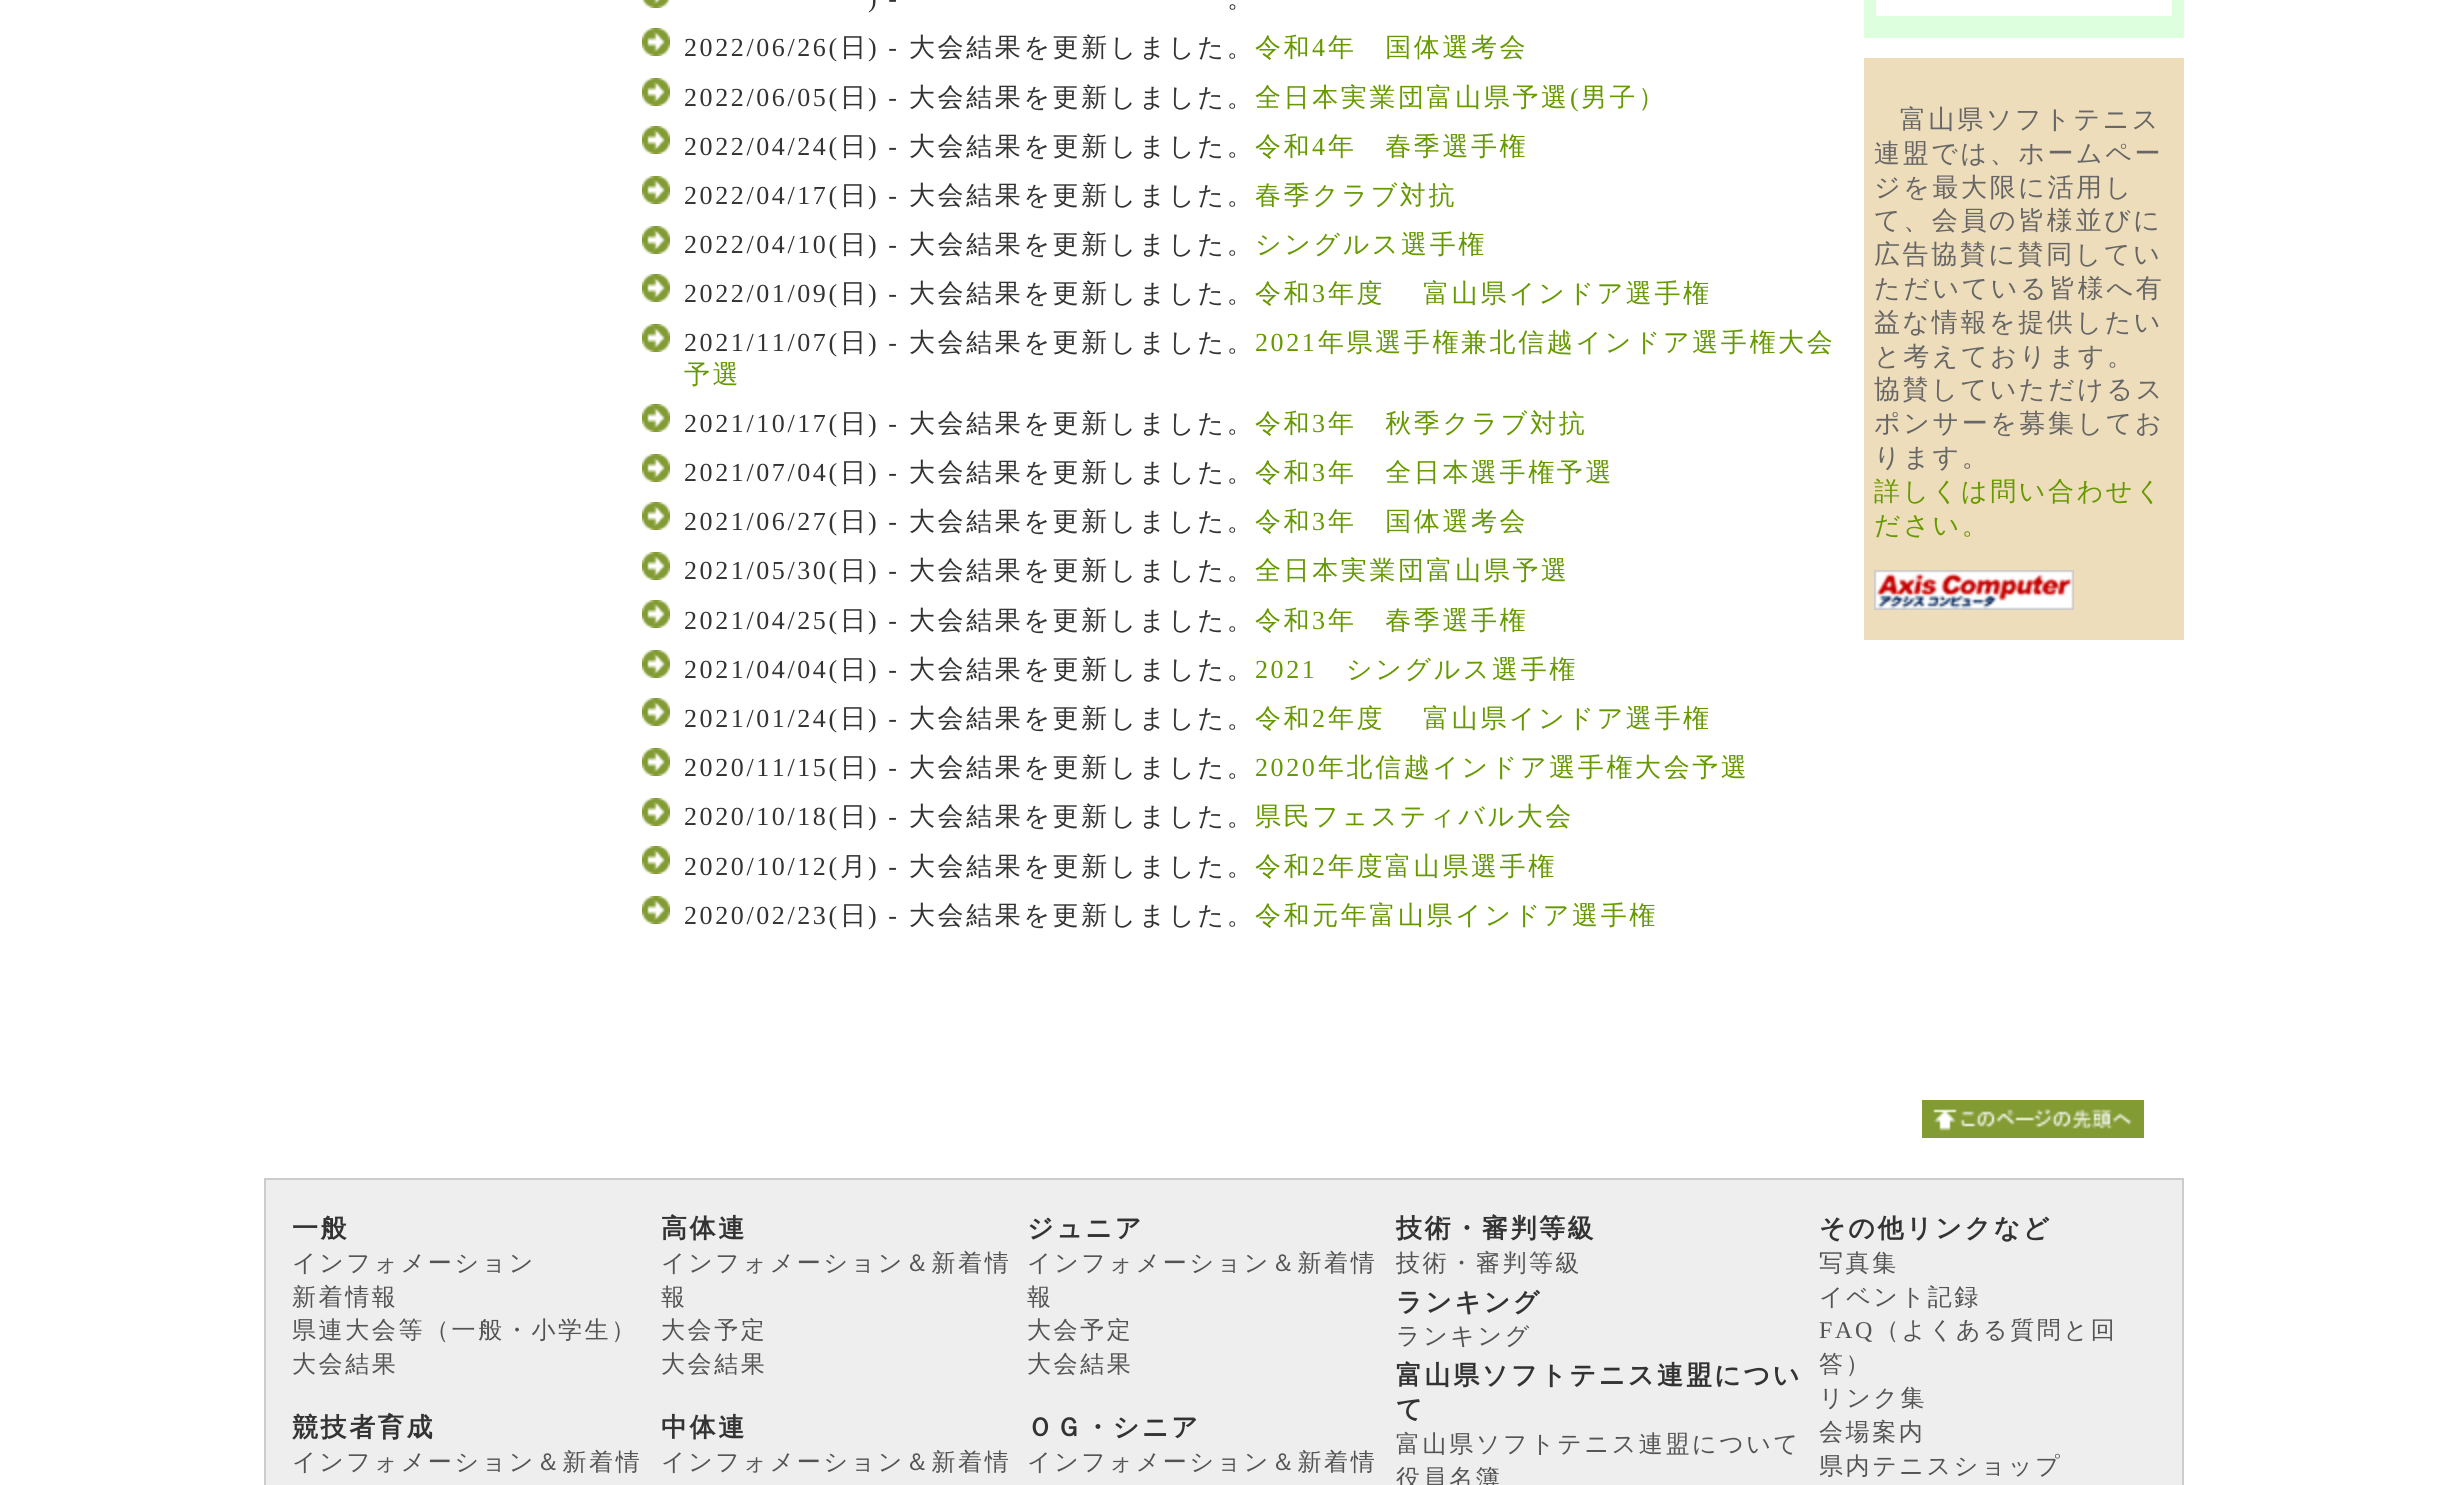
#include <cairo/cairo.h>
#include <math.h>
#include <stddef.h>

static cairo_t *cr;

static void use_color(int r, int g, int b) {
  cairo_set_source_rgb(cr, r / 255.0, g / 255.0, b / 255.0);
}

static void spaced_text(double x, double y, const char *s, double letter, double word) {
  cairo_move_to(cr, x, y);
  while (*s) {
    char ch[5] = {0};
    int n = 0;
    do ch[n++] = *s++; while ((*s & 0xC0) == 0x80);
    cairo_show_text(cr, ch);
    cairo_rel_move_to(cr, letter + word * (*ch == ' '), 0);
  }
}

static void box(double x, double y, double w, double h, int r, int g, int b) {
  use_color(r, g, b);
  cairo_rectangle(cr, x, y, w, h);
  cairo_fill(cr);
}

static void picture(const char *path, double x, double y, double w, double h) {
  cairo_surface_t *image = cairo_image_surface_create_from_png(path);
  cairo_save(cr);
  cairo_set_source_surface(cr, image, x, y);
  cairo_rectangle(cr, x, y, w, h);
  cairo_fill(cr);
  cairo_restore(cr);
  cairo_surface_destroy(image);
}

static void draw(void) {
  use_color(255, 255, 255);
  cairo_paint(cr);
  picture("img_01.png", 642, 0, 28, 8);
  picture("img_02.png", 642, 28, 28, 28);
  picture("img_02.png", 642, 78, 28, 28);
  picture("img_02.png", 642, 126, 28, 28);
  picture("img_02.png", 642, 176, 28, 28);
  picture("img_02.png", 642, 226, 28, 28);
  picture("img_02.png", 642, 274, 28, 28);
  picture("img_02.png", 642, 324, 28, 28);
  picture("img_02.png", 642, 404, 28, 28);
  picture("img_02.png", 642, 454, 28, 28);
  picture("img_02.png", 642, 502, 28, 28);
  picture("img_02.png", 642, 552, 28, 28);
  picture("img_02.png", 642, 600, 28, 28);
  picture("img_02.png", 642, 650, 28, 28);
  picture("img_02.png", 642, 698, 28, 28);
  picture("img_02.png", 642, 748, 28, 28);
  picture("img_02.png", 642, 798, 28, 28);
  picture("img_02.png", 642, 846, 28, 28);
  picture("img_02.png", 642, 896, 28, 28);
  box(1864, 0, 320, 38, 221, 255, 221);
  box(1876, 0, 296, 16, 255, 255, 255);
  box(1864, 58, 320, 582, 238, 221, 187);
  picture("img_03.png", 1874, 570, 200, 40);
  picture("img_04.png", 1922, 1100, 222, 38);
  use_color(238, 238, 238);
  cairo_rectangle(cr, 265, 1179, 1918, 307);
  cairo_fill_preserve(cr);
  use_color(204, 204, 204);
  cairo_stroke(cr);
  cairo_select_font_face(cr, "Liberation Serif", CAIRO_FONT_SLANT_NORMAL, CAIRO_FONT_WEIGHT_NORMAL);
  cairo_set_font_size(cr, 26);
  use_color(51, 51, 51);
  spaced_text(868, 7, ") -", 2.6, 0);
  cairo_select_font_face(cr, "WenQuanYi Zen Hei Medium", CAIRO_FONT_SLANT_NORMAL, CAIRO_FONT_WEIGHT_NORMAL);
  spaced_text(1227, 7, "。", 2.6, 0);
  cairo_select_font_face(cr, "Liberation Serif", CAIRO_FONT_SLANT_NORMAL, CAIRO_FONT_WEIGHT_NORMAL);
  spaced_text(684, 56, "2022/06/26(", 2.6, 0);
  cairo_select_font_face(cr, "WenQuanYi Zen Hei Medium", CAIRO_FONT_SLANT_NORMAL, CAIRO_FONT_WEIGHT_NORMAL);
  spaced_text(840, 56, "日", 2.6, 0);
  cairo_select_font_face(cr, "Liberation Serif", CAIRO_FONT_SLANT_NORMAL, CAIRO_FONT_WEIGHT_NORMAL);
  spaced_text(868, 56, ") -", 2.6, 0);
  cairo_select_font_face(cr, "WenQuanYi Zen Hei Medium", CAIRO_FONT_SLANT_NORMAL, CAIRO_FONT_WEIGHT_NORMAL);
  spaced_text(909, 56, "大会結果を更新しました。", 2.6, 0);
  use_color(102, 153, 0);
  spaced_text(1255, 56, "令和", 2.6, 0);
  cairo_select_font_face(cr, "Liberation Serif", CAIRO_FONT_SLANT_NORMAL, CAIRO_FONT_WEIGHT_NORMAL);
  spaced_text(1312, 56, "4", 2.6, 0);
  cairo_select_font_face(cr, "WenQuanYi Zen Hei Medium", CAIRO_FONT_SLANT_NORMAL, CAIRO_FONT_WEIGHT_NORMAL);
  spaced_text(1328, 56, "年　国体選考会", 2.6, 0);
  cairo_select_font_face(cr, "Liberation Serif", CAIRO_FONT_SLANT_NORMAL, CAIRO_FONT_WEIGHT_NORMAL);
  use_color(51, 51, 51);
  spaced_text(684, 106, "2022/06/05(", 2.6, 0);
  cairo_select_font_face(cr, "WenQuanYi Zen Hei Medium", CAIRO_FONT_SLANT_NORMAL, CAIRO_FONT_WEIGHT_NORMAL);
  spaced_text(840, 106, "日", 2.6, 0);
  cairo_select_font_face(cr, "Liberation Serif", CAIRO_FONT_SLANT_NORMAL, CAIRO_FONT_WEIGHT_NORMAL);
  spaced_text(868, 106, ") -", 2.6, 0);
  cairo_select_font_face(cr, "WenQuanYi Zen Hei Medium", CAIRO_FONT_SLANT_NORMAL, CAIRO_FONT_WEIGHT_NORMAL);
  spaced_text(909, 106, "大会結果を更新しました。", 2.6, 0);
  use_color(102, 153, 0);
  spaced_text(1255, 106, "全日本実業団富山県予選", 2.6, 0);
  cairo_select_font_face(cr, "Liberation Serif", CAIRO_FONT_SLANT_NORMAL, CAIRO_FONT_WEIGHT_NORMAL);
  spaced_text(1570, 106, "(", 2.6, 0);
  cairo_select_font_face(cr, "WenQuanYi Zen Hei Medium", CAIRO_FONT_SLANT_NORMAL, CAIRO_FONT_WEIGHT_NORMAL);
  spaced_text(1581, 106, "男子）", 2.6, 0);
  cairo_select_font_face(cr, "Liberation Serif", CAIRO_FONT_SLANT_NORMAL, CAIRO_FONT_WEIGHT_NORMAL);
  use_color(51, 51, 51);
  spaced_text(684, 155, "2022/04/24(", 2.6, 0);
  cairo_select_font_face(cr, "WenQuanYi Zen Hei Medium", CAIRO_FONT_SLANT_NORMAL, CAIRO_FONT_WEIGHT_NORMAL);
  spaced_text(840, 155, "日", 2.6, 0);
  cairo_select_font_face(cr, "Liberation Serif", CAIRO_FONT_SLANT_NORMAL, CAIRO_FONT_WEIGHT_NORMAL);
  spaced_text(868, 155, ") -", 2.6, 0);
  cairo_select_font_face(cr, "WenQuanYi Zen Hei Medium", CAIRO_FONT_SLANT_NORMAL, CAIRO_FONT_WEIGHT_NORMAL);
  spaced_text(909, 155, "大会結果を更新しました。", 2.6, 0);
  use_color(102, 153, 0);
  spaced_text(1255, 155, "令和", 2.6, 0);
  cairo_select_font_face(cr, "Liberation Serif", CAIRO_FONT_SLANT_NORMAL, CAIRO_FONT_WEIGHT_NORMAL);
  spaced_text(1312, 155, "4", 2.6, 0);
  cairo_select_font_face(cr, "WenQuanYi Zen Hei Medium", CAIRO_FONT_SLANT_NORMAL, CAIRO_FONT_WEIGHT_NORMAL);
  spaced_text(1328, 155, "年　春季選手権", 2.6, 0);
  cairo_select_font_face(cr, "Liberation Serif", CAIRO_FONT_SLANT_NORMAL, CAIRO_FONT_WEIGHT_NORMAL);
  use_color(51, 51, 51);
  spaced_text(684, 204, "2022/04/17(", 2.6, 0);
  cairo_select_font_face(cr, "WenQuanYi Zen Hei Medium", CAIRO_FONT_SLANT_NORMAL, CAIRO_FONT_WEIGHT_NORMAL);
  spaced_text(840, 204, "日", 2.6, 0);
  cairo_select_font_face(cr, "Liberation Serif", CAIRO_FONT_SLANT_NORMAL, CAIRO_FONT_WEIGHT_NORMAL);
  spaced_text(868, 204, ") -", 2.6, 0);
  cairo_select_font_face(cr, "WenQuanYi Zen Hei Medium", CAIRO_FONT_SLANT_NORMAL, CAIRO_FONT_WEIGHT_NORMAL);
  spaced_text(909, 204, "大会結果を更新しました。", 2.6, 0);
  use_color(102, 153, 0);
  spaced_text(1255, 204, "春季クラブ対抗", 2.6, 0);
  cairo_select_font_face(cr, "Liberation Serif", CAIRO_FONT_SLANT_NORMAL, CAIRO_FONT_WEIGHT_NORMAL);
  use_color(51, 51, 51);
  spaced_text(684, 253, "2022/04/10(", 2.6, 0);
  cairo_select_font_face(cr, "WenQuanYi Zen Hei Medium", CAIRO_FONT_SLANT_NORMAL, CAIRO_FONT_WEIGHT_NORMAL);
  spaced_text(840, 253, "日", 2.6, 0);
  cairo_select_font_face(cr, "Liberation Serif", CAIRO_FONT_SLANT_NORMAL, CAIRO_FONT_WEIGHT_NORMAL);
  spaced_text(868, 253, ") -", 2.6, 0);
  cairo_select_font_face(cr, "WenQuanYi Zen Hei Medium", CAIRO_FONT_SLANT_NORMAL, CAIRO_FONT_WEIGHT_NORMAL);
  spaced_text(909, 253, "大会結果を更新しました。", 2.6, 0);
  use_color(102, 153, 0);
  spaced_text(1255, 253, "シングルス選手権", 2.6, 0);
  cairo_select_font_face(cr, "Liberation Serif", CAIRO_FONT_SLANT_NORMAL, CAIRO_FONT_WEIGHT_NORMAL);
  use_color(51, 51, 51);
  spaced_text(684, 302, "2022/01/09(", 2.6, 0);
  cairo_select_font_face(cr, "WenQuanYi Zen Hei Medium", CAIRO_FONT_SLANT_NORMAL, CAIRO_FONT_WEIGHT_NORMAL);
  spaced_text(840, 302, "日", 2.6, 0);
  cairo_select_font_face(cr, "Liberation Serif", CAIRO_FONT_SLANT_NORMAL, CAIRO_FONT_WEIGHT_NORMAL);
  spaced_text(868, 302, ") -", 2.6, 0);
  cairo_select_font_face(cr, "WenQuanYi Zen Hei Medium", CAIRO_FONT_SLANT_NORMAL, CAIRO_FONT_WEIGHT_NORMAL);
  spaced_text(909, 302, "大会結果を更新しました。", 2.6, 0);
  use_color(102, 153, 0);
  spaced_text(1255, 302, "令和", 2.6, 0);
  cairo_select_font_face(cr, "Liberation Serif", CAIRO_FONT_SLANT_NORMAL, CAIRO_FONT_WEIGHT_NORMAL);
  spaced_text(1312, 302, "3", 2.6, 0);
  cairo_select_font_face(cr, "WenQuanYi Zen Hei Medium", CAIRO_FONT_SLANT_NORMAL, CAIRO_FONT_WEIGHT_NORMAL);
  spaced_text(1328, 302, "年度 　富山県インドア選手権", 2.6, -1);
  cairo_select_font_face(cr, "Liberation Serif", CAIRO_FONT_SLANT_NORMAL, CAIRO_FONT_WEIGHT_NORMAL);
  use_color(51, 51, 51);
  spaced_text(684, 351, "2021/11/07(", 2.6, 0);
  cairo_select_font_face(cr, "WenQuanYi Zen Hei Medium", CAIRO_FONT_SLANT_NORMAL, CAIRO_FONT_WEIGHT_NORMAL);
  spaced_text(840, 351, "日", 2.6, 0);
  cairo_select_font_face(cr, "Liberation Serif", CAIRO_FONT_SLANT_NORMAL, CAIRO_FONT_WEIGHT_NORMAL);
  spaced_text(868, 351, ") -", 2.6, 0);
  cairo_select_font_face(cr, "WenQuanYi Zen Hei Medium", CAIRO_FONT_SLANT_NORMAL, CAIRO_FONT_WEIGHT_NORMAL);
  spaced_text(909, 351, "大会結果を更新しました。", 2.6, 0);
  cairo_select_font_face(cr, "Liberation Serif", CAIRO_FONT_SLANT_NORMAL, CAIRO_FONT_WEIGHT_NORMAL);
  use_color(102, 153, 0);
  spaced_text(1255, 351, "2021", 2.6, 0);
  cairo_select_font_face(cr, "WenQuanYi Zen Hei Medium", CAIRO_FONT_SLANT_NORMAL, CAIRO_FONT_WEIGHT_NORMAL);
  spaced_text(1318, 351, "年県選手権兼北信越インドア選手権大会", 2.6, 0);
  spaced_text(684, 383, "予選", 2.6, 0);
  cairo_select_font_face(cr, "Liberation Serif", CAIRO_FONT_SLANT_NORMAL, CAIRO_FONT_WEIGHT_NORMAL);
  use_color(51, 51, 51);
  spaced_text(684, 432, "2021/10/17(", 2.6, 0);
  cairo_select_font_face(cr, "WenQuanYi Zen Hei Medium", CAIRO_FONT_SLANT_NORMAL, CAIRO_FONT_WEIGHT_NORMAL);
  spaced_text(840, 432, "日", 2.6, 0);
  cairo_select_font_face(cr, "Liberation Serif", CAIRO_FONT_SLANT_NORMAL, CAIRO_FONT_WEIGHT_NORMAL);
  spaced_text(868, 432, ") -", 2.6, 0);
  cairo_select_font_face(cr, "WenQuanYi Zen Hei Medium", CAIRO_FONT_SLANT_NORMAL, CAIRO_FONT_WEIGHT_NORMAL);
  spaced_text(909, 432, "大会結果を更新しました。", 2.6, 0);
  use_color(102, 153, 0);
  spaced_text(1255, 432, "令和", 2.6, 0);
  cairo_select_font_face(cr, "Liberation Serif", CAIRO_FONT_SLANT_NORMAL, CAIRO_FONT_WEIGHT_NORMAL);
  spaced_text(1312, 432, "3", 2.6, 0);
  cairo_select_font_face(cr, "WenQuanYi Zen Hei Medium", CAIRO_FONT_SLANT_NORMAL, CAIRO_FONT_WEIGHT_NORMAL);
  spaced_text(1328, 432, "年　秋季クラブ対抗", 2.6, 0);
  cairo_select_font_face(cr, "Liberation Serif", CAIRO_FONT_SLANT_NORMAL, CAIRO_FONT_WEIGHT_NORMAL);
  use_color(51, 51, 51);
  spaced_text(684, 481, "2021/07/04(", 2.6, 0);
  cairo_select_font_face(cr, "WenQuanYi Zen Hei Medium", CAIRO_FONT_SLANT_NORMAL, CAIRO_FONT_WEIGHT_NORMAL);
  spaced_text(840, 481, "日", 2.6, 0);
  cairo_select_font_face(cr, "Liberation Serif", CAIRO_FONT_SLANT_NORMAL, CAIRO_FONT_WEIGHT_NORMAL);
  spaced_text(868, 481, ") -", 2.6, 0);
  cairo_select_font_face(cr, "WenQuanYi Zen Hei Medium", CAIRO_FONT_SLANT_NORMAL, CAIRO_FONT_WEIGHT_NORMAL);
  spaced_text(909, 481, "大会結果を更新しました。", 2.6, 0);
  use_color(102, 153, 0);
  spaced_text(1255, 481, "令和", 2.6, 0);
  cairo_select_font_face(cr, "Liberation Serif", CAIRO_FONT_SLANT_NORMAL, CAIRO_FONT_WEIGHT_NORMAL);
  spaced_text(1312, 481, "3", 2.6, 0);
  cairo_select_font_face(cr, "WenQuanYi Zen Hei Medium", CAIRO_FONT_SLANT_NORMAL, CAIRO_FONT_WEIGHT_NORMAL);
  spaced_text(1328, 481, "年　全日本選手権予選", 2.6, 0);
  cairo_select_font_face(cr, "Liberation Serif", CAIRO_FONT_SLANT_NORMAL, CAIRO_FONT_WEIGHT_NORMAL);
  use_color(51, 51, 51);
  spaced_text(684, 530, "2021/06/27(", 2.6, 0);
  cairo_select_font_face(cr, "WenQuanYi Zen Hei Medium", CAIRO_FONT_SLANT_NORMAL, CAIRO_FONT_WEIGHT_NORMAL);
  spaced_text(840, 530, "日", 2.6, 0);
  cairo_select_font_face(cr, "Liberation Serif", CAIRO_FONT_SLANT_NORMAL, CAIRO_FONT_WEIGHT_NORMAL);
  spaced_text(868, 530, ") -", 2.6, 0);
  cairo_select_font_face(cr, "WenQuanYi Zen Hei Medium", CAIRO_FONT_SLANT_NORMAL, CAIRO_FONT_WEIGHT_NORMAL);
  spaced_text(909, 530, "大会結果を更新しました。", 2.6, 0);
  use_color(102, 153, 0);
  spaced_text(1255, 530, "令和", 2.6, 0);
  cairo_select_font_face(cr, "Liberation Serif", CAIRO_FONT_SLANT_NORMAL, CAIRO_FONT_WEIGHT_NORMAL);
  spaced_text(1312, 530, "3", 2.6, 0);
  cairo_select_font_face(cr, "WenQuanYi Zen Hei Medium", CAIRO_FONT_SLANT_NORMAL, CAIRO_FONT_WEIGHT_NORMAL);
  spaced_text(1328, 530, "年　国体選考会", 2.6, 0);
  cairo_select_font_face(cr, "Liberation Serif", CAIRO_FONT_SLANT_NORMAL, CAIRO_FONT_WEIGHT_NORMAL);
  use_color(51, 51, 51);
  spaced_text(684, 579, "2021/05/30(", 2.6, 0);
  cairo_select_font_face(cr, "WenQuanYi Zen Hei Medium", CAIRO_FONT_SLANT_NORMAL, CAIRO_FONT_WEIGHT_NORMAL);
  spaced_text(840, 579, "日", 2.6, 0);
  cairo_select_font_face(cr, "Liberation Serif", CAIRO_FONT_SLANT_NORMAL, CAIRO_FONT_WEIGHT_NORMAL);
  spaced_text(868, 579, ") -", 2.6, 0);
  cairo_select_font_face(cr, "WenQuanYi Zen Hei Medium", CAIRO_FONT_SLANT_NORMAL, CAIRO_FONT_WEIGHT_NORMAL);
  spaced_text(909, 579, "大会結果を更新しました。", 2.6, 0);
  use_color(102, 153, 0);
  spaced_text(1255, 579, "全日本実業団富山県予選", 2.6, 0);
  cairo_select_font_face(cr, "Liberation Serif", CAIRO_FONT_SLANT_NORMAL, CAIRO_FONT_WEIGHT_NORMAL);
  use_color(51, 51, 51);
  spaced_text(684, 629, "2021/04/25(", 2.6, 0);
  cairo_select_font_face(cr, "WenQuanYi Zen Hei Medium", CAIRO_FONT_SLANT_NORMAL, CAIRO_FONT_WEIGHT_NORMAL);
  spaced_text(840, 629, "日", 2.6, 0);
  cairo_select_font_face(cr, "Liberation Serif", CAIRO_FONT_SLANT_NORMAL, CAIRO_FONT_WEIGHT_NORMAL);
  spaced_text(868, 629, ") -", 2.6, 0);
  cairo_select_font_face(cr, "WenQuanYi Zen Hei Medium", CAIRO_FONT_SLANT_NORMAL, CAIRO_FONT_WEIGHT_NORMAL);
  spaced_text(909, 629, "大会結果を更新しました。", 2.6, 0);
  use_color(102, 153, 0);
  spaced_text(1255, 629, "令和", 2.6, 0);
  cairo_select_font_face(cr, "Liberation Serif", CAIRO_FONT_SLANT_NORMAL, CAIRO_FONT_WEIGHT_NORMAL);
  spaced_text(1312, 629, "3", 2.6, 0);
  cairo_select_font_face(cr, "WenQuanYi Zen Hei Medium", CAIRO_FONT_SLANT_NORMAL, CAIRO_FONT_WEIGHT_NORMAL);
  spaced_text(1328, 629, "年　春季選手権", 2.6, 0);
  cairo_select_font_face(cr, "Liberation Serif", CAIRO_FONT_SLANT_NORMAL, CAIRO_FONT_WEIGHT_NORMAL);
  use_color(51, 51, 51);
  spaced_text(684, 678, "2021/04/04(", 2.6, 0);
  cairo_select_font_face(cr, "WenQuanYi Zen Hei Medium", CAIRO_FONT_SLANT_NORMAL, CAIRO_FONT_WEIGHT_NORMAL);
  spaced_text(840, 678, "日", 2.6, 0);
  cairo_select_font_face(cr, "Liberation Serif", CAIRO_FONT_SLANT_NORMAL, CAIRO_FONT_WEIGHT_NORMAL);
  spaced_text(868, 678, ") -", 2.6, 0);
  cairo_select_font_face(cr, "WenQuanYi Zen Hei Medium", CAIRO_FONT_SLANT_NORMAL, CAIRO_FONT_WEIGHT_NORMAL);
  spaced_text(909, 678, "大会結果を更新しました。", 2.6, 0);
  cairo_select_font_face(cr, "Liberation Serif", CAIRO_FONT_SLANT_NORMAL, CAIRO_FONT_WEIGHT_NORMAL);
  use_color(102, 153, 0);
  spaced_text(1255, 678, "2021", 2.6, 0);
  cairo_select_font_face(cr, "WenQuanYi Zen Hei Medium", CAIRO_FONT_SLANT_NORMAL, CAIRO_FONT_WEIGHT_NORMAL);
  spaced_text(1346, 678, "シングルス選手権", 2.6, 0);
  cairo_select_font_face(cr, "Liberation Serif", CAIRO_FONT_SLANT_NORMAL, CAIRO_FONT_WEIGHT_NORMAL);
  use_color(51, 51, 51);
  spaced_text(684, 727, "2021/01/24(", 2.6, 0);
  cairo_select_font_face(cr, "WenQuanYi Zen Hei Medium", CAIRO_FONT_SLANT_NORMAL, CAIRO_FONT_WEIGHT_NORMAL);
  spaced_text(840, 727, "日", 2.6, 0);
  cairo_select_font_face(cr, "Liberation Serif", CAIRO_FONT_SLANT_NORMAL, CAIRO_FONT_WEIGHT_NORMAL);
  spaced_text(868, 727, ") -", 2.6, 0);
  cairo_select_font_face(cr, "WenQuanYi Zen Hei Medium", CAIRO_FONT_SLANT_NORMAL, CAIRO_FONT_WEIGHT_NORMAL);
  spaced_text(909, 727, "大会結果を更新しました。", 2.6, 0);
  use_color(102, 153, 0);
  spaced_text(1255, 727, "令和", 2.6, 0);
  cairo_select_font_face(cr, "Liberation Serif", CAIRO_FONT_SLANT_NORMAL, CAIRO_FONT_WEIGHT_NORMAL);
  spaced_text(1312, 727, "2", 2.6, 0);
  cairo_select_font_face(cr, "WenQuanYi Zen Hei Medium", CAIRO_FONT_SLANT_NORMAL, CAIRO_FONT_WEIGHT_NORMAL);
  spaced_text(1328, 727, "年度 　富山県インドア選手権", 2.6, -1);
  cairo_select_font_face(cr, "Liberation Serif", CAIRO_FONT_SLANT_NORMAL, CAIRO_FONT_WEIGHT_NORMAL);
  use_color(51, 51, 51);
  spaced_text(684, 776, "2020/11/15(", 2.6, 0);
  cairo_select_font_face(cr, "WenQuanYi Zen Hei Medium", CAIRO_FONT_SLANT_NORMAL, CAIRO_FONT_WEIGHT_NORMAL);
  spaced_text(840, 776, "日", 2.6, 0);
  cairo_select_font_face(cr, "Liberation Serif", CAIRO_FONT_SLANT_NORMAL, CAIRO_FONT_WEIGHT_NORMAL);
  spaced_text(868, 776, ") -", 2.6, 0);
  cairo_select_font_face(cr, "WenQuanYi Zen Hei Medium", CAIRO_FONT_SLANT_NORMAL, CAIRO_FONT_WEIGHT_NORMAL);
  spaced_text(909, 776, "大会結果を更新しました。", 2.6, 0);
  cairo_select_font_face(cr, "Liberation Serif", CAIRO_FONT_SLANT_NORMAL, CAIRO_FONT_WEIGHT_NORMAL);
  use_color(102, 153, 0);
  spaced_text(1255, 776, "2020", 2.6, 0);
  cairo_select_font_face(cr, "WenQuanYi Zen Hei Medium", CAIRO_FONT_SLANT_NORMAL, CAIRO_FONT_WEIGHT_NORMAL);
  spaced_text(1318, 776, "年北信越インドア選手権大会予選", 2.6, 0);
  cairo_select_font_face(cr, "Liberation Serif", CAIRO_FONT_SLANT_NORMAL, CAIRO_FONT_WEIGHT_NORMAL);
  use_color(51, 51, 51);
  spaced_text(684, 825, "2020/10/18(", 2.6, 0);
  cairo_select_font_face(cr, "WenQuanYi Zen Hei Medium", CAIRO_FONT_SLANT_NORMAL, CAIRO_FONT_WEIGHT_NORMAL);
  spaced_text(840, 825, "日", 2.6, 0);
  cairo_select_font_face(cr, "Liberation Serif", CAIRO_FONT_SLANT_NORMAL, CAIRO_FONT_WEIGHT_NORMAL);
  spaced_text(868, 825, ") -", 2.6, 0);
  cairo_select_font_face(cr, "WenQuanYi Zen Hei Medium", CAIRO_FONT_SLANT_NORMAL, CAIRO_FONT_WEIGHT_NORMAL);
  spaced_text(909, 825, "大会結果を更新しました。", 2.6, 0);
  use_color(102, 153, 0);
  spaced_text(1255, 825, "県民フェスティバル大会", 2.6, 0);
  cairo_select_font_face(cr, "Liberation Serif", CAIRO_FONT_SLANT_NORMAL, CAIRO_FONT_WEIGHT_NORMAL);
  use_color(51, 51, 51);
  spaced_text(684, 875, "2020/10/12(", 2.6, 0);
  cairo_select_font_face(cr, "WenQuanYi Zen Hei Medium", CAIRO_FONT_SLANT_NORMAL, CAIRO_FONT_WEIGHT_NORMAL);
  spaced_text(840, 875, "月", 2.6, 0);
  cairo_select_font_face(cr, "Liberation Serif", CAIRO_FONT_SLANT_NORMAL, CAIRO_FONT_WEIGHT_NORMAL);
  spaced_text(868, 875, ") -", 2.6, 0);
  cairo_select_font_face(cr, "WenQuanYi Zen Hei Medium", CAIRO_FONT_SLANT_NORMAL, CAIRO_FONT_WEIGHT_NORMAL);
  spaced_text(909, 875, "大会結果を更新しました。", 2.6, 0);
  use_color(102, 153, 0);
  spaced_text(1255, 875, "令和", 2.6, 0);
  cairo_select_font_face(cr, "Liberation Serif", CAIRO_FONT_SLANT_NORMAL, CAIRO_FONT_WEIGHT_NORMAL);
  spaced_text(1312, 875, "2", 2.6, 0);
  cairo_select_font_face(cr, "WenQuanYi Zen Hei Medium", CAIRO_FONT_SLANT_NORMAL, CAIRO_FONT_WEIGHT_NORMAL);
  spaced_text(1328, 875, "年度富山県選手権", 2.6, 0);
  cairo_select_font_face(cr, "Liberation Serif", CAIRO_FONT_SLANT_NORMAL, CAIRO_FONT_WEIGHT_NORMAL);
  use_color(51, 51, 51);
  spaced_text(684, 924, "2020/02/23(", 2.6, 0);
  cairo_select_font_face(cr, "WenQuanYi Zen Hei Medium", CAIRO_FONT_SLANT_NORMAL, CAIRO_FONT_WEIGHT_NORMAL);
  spaced_text(840, 924, "日", 2.6, 0);
  cairo_select_font_face(cr, "Liberation Serif", CAIRO_FONT_SLANT_NORMAL, CAIRO_FONT_WEIGHT_NORMAL);
  spaced_text(868, 924, ") -", 2.6, 0);
  cairo_select_font_face(cr, "WenQuanYi Zen Hei Medium", CAIRO_FONT_SLANT_NORMAL, CAIRO_FONT_WEIGHT_NORMAL);
  spaced_text(909, 924, "大会結果を更新しました。", 2.6, 0);
  use_color(102, 153, 0);
  spaced_text(1255, 924, "令和元年富山県インドア選手権", 2.6, 0);
  use_color(102, 102, 102);
  spaced_text(1900, 128, "富山県ソフトテニス", 2.6, 0);
  spaced_text(1874, 162, "連盟では、ホームペー", 2.6, 0);
  spaced_text(1874, 196, "ジを最大限に活用し", 2.6, 0);
  spaced_text(1874, 229, "て、会員の皆様並びに", 2.6, 0);
  spaced_text(1874, 263, "広告協賛に賛同してい", 2.6, 0);
  spaced_text(1874, 297, "ただいている皆様へ有", 2.6, 0);
  spaced_text(1874, 331, "益な情報を提供したい", 2.6, 0);
  spaced_text(1874, 365, "と考えております。", 2.6, 0);
  spaced_text(1874, 398, "協賛していただけるス", 2.6, 0);
  spaced_text(1874, 432, "ポンサーを募集してお", 2.6, 0);
  spaced_text(1874, 466, "ります。", 2.6, 0);
  use_color(102, 153, 0);
  spaced_text(1874, 500, "詳しくは問い合わせく", 2.6, 0);
  spaced_text(1874, 534, "ださい。", 2.6, 0);
  cairo_select_font_face(cr, "WenQuanYi Zen Hei", CAIRO_FONT_SLANT_NORMAL, CAIRO_FONT_WEIGHT_BOLD);
  use_color(51, 51, 51);
  spaced_text(292, 1237, "一般", 2.6, 0);
  cairo_select_font_face(cr, "WenQuanYi Zen Hei Medium", CAIRO_FONT_SLANT_NORMAL, CAIRO_FONT_WEIGHT_NORMAL);
  cairo_set_font_size(cr, 24);
  use_color(84, 84, 84);
  spaced_text(292, 1271, "インフォメーション", 2.6, 0);
  spaced_text(292, 1305, "新着情報", 2.6, 0);
  spaced_text(292, 1338, "県連大会等（一般・小学生）", 2.6, 0);
  spaced_text(292, 1372, "大会結果", 2.6, 0);
  cairo_select_font_face(cr, "WenQuanYi Zen Hei", CAIRO_FONT_SLANT_NORMAL, CAIRO_FONT_WEIGHT_BOLD);
  cairo_set_font_size(cr, 26);
  use_color(51, 51, 51);
  spaced_text(661, 1237, "高体連", 2.6, 0);
  cairo_select_font_face(cr, "WenQuanYi Zen Hei Medium", CAIRO_FONT_SLANT_NORMAL, CAIRO_FONT_WEIGHT_NORMAL);
  cairo_set_font_size(cr, 24);
  use_color(84, 84, 84);
  spaced_text(661, 1271, "インフォメーション＆新着情", 2.6, 0);
  spaced_text(661, 1305, "報", 2.6, 0);
  spaced_text(661, 1338, "大会予定", 2.6, 0);
  spaced_text(661, 1372, "大会結果", 2.6, 0);
  cairo_select_font_face(cr, "WenQuanYi Zen Hei", CAIRO_FONT_SLANT_NORMAL, CAIRO_FONT_WEIGHT_BOLD);
  cairo_set_font_size(cr, 26);
  use_color(51, 51, 51);
  spaced_text(1027, 1237, "ジュニア", 2.6, 0);
  cairo_select_font_face(cr, "WenQuanYi Zen Hei Medium", CAIRO_FONT_SLANT_NORMAL, CAIRO_FONT_WEIGHT_NORMAL);
  cairo_set_font_size(cr, 24);
  use_color(84, 84, 84);
  spaced_text(1027, 1271, "インフォメーション＆新着情", 2.6, 0);
  spaced_text(1027, 1305, "報", 2.6, 0);
  spaced_text(1027, 1338, "大会予定", 2.6, 0);
  spaced_text(1027, 1372, "大会結果", 2.6, 0);
  cairo_select_font_face(cr, "WenQuanYi Zen Hei", CAIRO_FONT_SLANT_NORMAL, CAIRO_FONT_WEIGHT_BOLD);
  cairo_set_font_size(cr, 26);
  use_color(51, 51, 51);
  spaced_text(1396, 1237, "技術・審判等級", 2.6, 0);
  cairo_select_font_face(cr, "WenQuanYi Zen Hei Medium", CAIRO_FONT_SLANT_NORMAL, CAIRO_FONT_WEIGHT_NORMAL);
  cairo_set_font_size(cr, 24);
  use_color(84, 84, 84);
  spaced_text(1396, 1271, "技術・審判等級", 2.6, 0);
  cairo_select_font_face(cr, "WenQuanYi Zen Hei", CAIRO_FONT_SLANT_NORMAL, CAIRO_FONT_WEIGHT_BOLD);
  cairo_set_font_size(cr, 26);
  use_color(51, 51, 51);
  spaced_text(1396, 1311, "ランキング", 2.6, 0);
  cairo_select_font_face(cr, "WenQuanYi Zen Hei Medium", CAIRO_FONT_SLANT_NORMAL, CAIRO_FONT_WEIGHT_NORMAL);
  cairo_set_font_size(cr, 24);
  use_color(84, 84, 84);
  spaced_text(1396, 1344, "ランキング", 2.6, 0);
  cairo_select_font_face(cr, "WenQuanYi Zen Hei", CAIRO_FONT_SLANT_NORMAL, CAIRO_FONT_WEIGHT_BOLD);
  cairo_set_font_size(cr, 26);
  use_color(51, 51, 51);
  spaced_text(1396, 1384, "富山県ソフトテニス連盟につい", 2.6, 0);
  spaced_text(1396, 1418, "て", 2.6, 0);
  cairo_select_font_face(cr, "WenQuanYi Zen Hei Medium", CAIRO_FONT_SLANT_NORMAL, CAIRO_FONT_WEIGHT_NORMAL);
  cairo_set_font_size(cr, 24);
  use_color(84, 84, 84);
  spaced_text(1396, 1452, "富山県ソフトテニス連盟について", 2.6, 0);
  spaced_text(1396, 1486, "役員名簿", 2.6, 0);
  cairo_select_font_face(cr, "WenQuanYi Zen Hei", CAIRO_FONT_SLANT_NORMAL, CAIRO_FONT_WEIGHT_BOLD);
  cairo_set_font_size(cr, 26);
  use_color(51, 51, 51);
  spaced_text(1819, 1237, "その他リンクなど", 2.6, 0);
  cairo_select_font_face(cr, "WenQuanYi Zen Hei Medium", CAIRO_FONT_SLANT_NORMAL, CAIRO_FONT_WEIGHT_NORMAL);
  cairo_set_font_size(cr, 24);
  use_color(84, 84, 84);
  spaced_text(1819, 1271, "写真集", 2.6, 0);
  spaced_text(1819, 1305, "イベント記録", 2.6, 0);
  cairo_select_font_face(cr, "Liberation Serif", CAIRO_FONT_SLANT_NORMAL, CAIRO_FONT_WEIGHT_NORMAL);
  spaced_text(1819, 1338, "FAQ", 2.6, 0);
  cairo_select_font_face(cr, "WenQuanYi Zen Hei Medium", CAIRO_FONT_SLANT_NORMAL, CAIRO_FONT_WEIGHT_NORMAL);
  spaced_text(1875, 1338, "（よくある質問と回", 2.6, 0);
  spaced_text(1819, 1372, "答）", 2.6, 0);
  spaced_text(1819, 1406, "リンク集", 2.6, 0);
  spaced_text(1819, 1440, "会場案内", 2.6, 0);
  spaced_text(1819, 1474, "県内テニスショップ", 2.6, 0);
  cairo_select_font_face(cr, "WenQuanYi Zen Hei", CAIRO_FONT_SLANT_NORMAL, CAIRO_FONT_WEIGHT_BOLD);
  cairo_set_font_size(cr, 26);
  use_color(51, 51, 51);
  spaced_text(292, 1436, "競技者育成", 2.6, 0);
  cairo_select_font_face(cr, "WenQuanYi Zen Hei Medium", CAIRO_FONT_SLANT_NORMAL, CAIRO_FONT_WEIGHT_NORMAL);
  cairo_set_font_size(cr, 24);
  use_color(84, 84, 84);
  spaced_text(292, 1470, "インフォメーション＆新着情", 2.6, 0);
  cairo_select_font_face(cr, "WenQuanYi Zen Hei", CAIRO_FONT_SLANT_NORMAL, CAIRO_FONT_WEIGHT_BOLD);
  cairo_set_font_size(cr, 26);
  use_color(51, 51, 51);
  spaced_text(661, 1436, "中体連", 2.6, 0);
  cairo_select_font_face(cr, "WenQuanYi Zen Hei Medium", CAIRO_FONT_SLANT_NORMAL, CAIRO_FONT_WEIGHT_NORMAL);
  cairo_set_font_size(cr, 24);
  use_color(84, 84, 84);
  spaced_text(661, 1470, "インフォメーション＆新着情", 2.6, 0);
  cairo_select_font_face(cr, "WenQuanYi Zen Hei", CAIRO_FONT_SLANT_NORMAL, CAIRO_FONT_WEIGHT_BOLD);
  cairo_set_font_size(cr, 26);
  use_color(51, 51, 51);
  spaced_text(1027, 1436, "ＯＧ・シニア", 2.6, 0);
  cairo_select_font_face(cr, "WenQuanYi Zen Hei Medium", CAIRO_FONT_SLANT_NORMAL, CAIRO_FONT_WEIGHT_NORMAL);
  cairo_set_font_size(cr, 24);
  use_color(84, 84, 84);
  spaced_text(1027, 1470, "インフォメーション＆新着情", 2.6, 0);
}

int main(void) {
  cairo_surface_t *surface = cairo_image_surface_create(CAIRO_FORMAT_RGB24, 2447, 1485);
  cr = cairo_create(surface);
  cairo_font_options_t *options = cairo_font_options_create();
  cairo_font_options_set_hint_metrics(options, CAIRO_HINT_METRICS_OFF);
  cairo_font_options_set_hint_style(options, CAIRO_HINT_STYLE_NONE);
  cairo_set_font_options(cr, options);
  cairo_set_miter_limit(cr, 4);
  draw();
  cairo_surface_write_to_png(surface, "out.png");
  cairo_font_options_destroy(options);
  cairo_destroy(cr);
  cairo_surface_destroy(surface);
  return 0;
}
